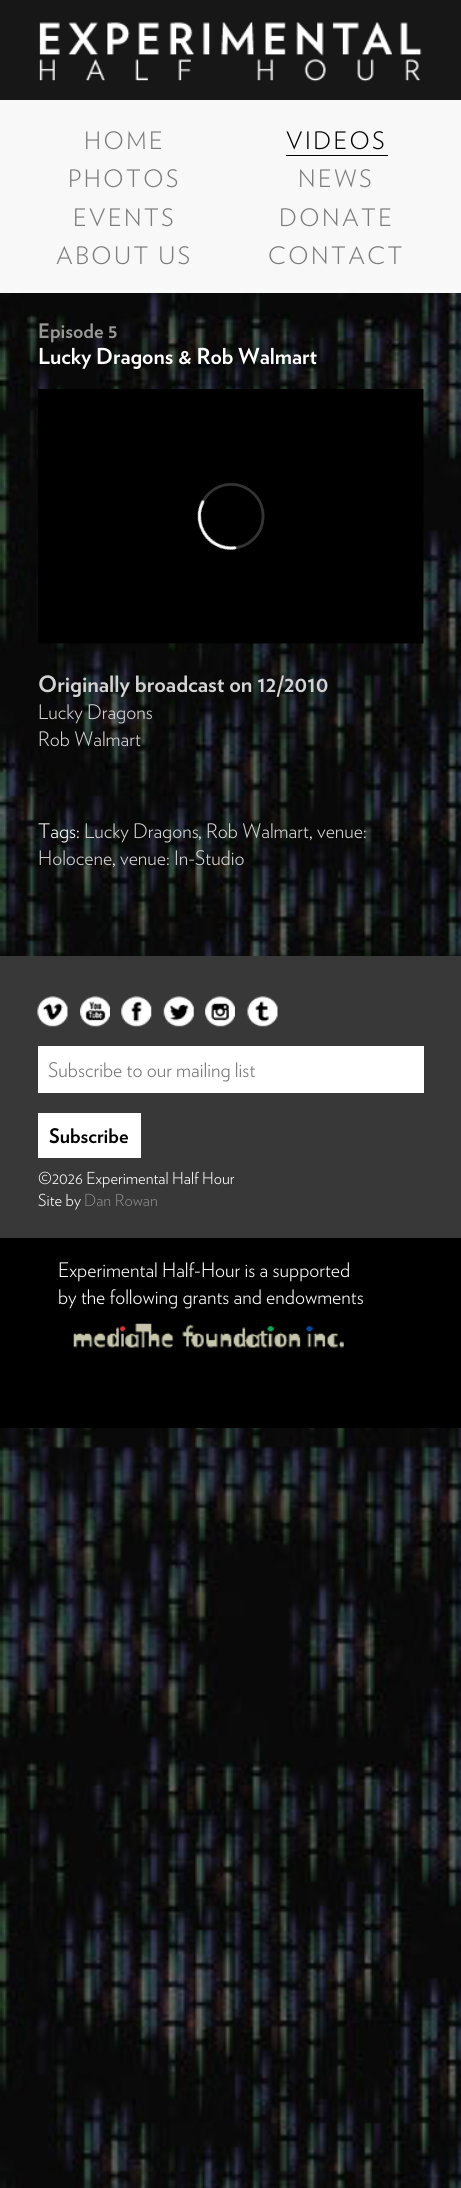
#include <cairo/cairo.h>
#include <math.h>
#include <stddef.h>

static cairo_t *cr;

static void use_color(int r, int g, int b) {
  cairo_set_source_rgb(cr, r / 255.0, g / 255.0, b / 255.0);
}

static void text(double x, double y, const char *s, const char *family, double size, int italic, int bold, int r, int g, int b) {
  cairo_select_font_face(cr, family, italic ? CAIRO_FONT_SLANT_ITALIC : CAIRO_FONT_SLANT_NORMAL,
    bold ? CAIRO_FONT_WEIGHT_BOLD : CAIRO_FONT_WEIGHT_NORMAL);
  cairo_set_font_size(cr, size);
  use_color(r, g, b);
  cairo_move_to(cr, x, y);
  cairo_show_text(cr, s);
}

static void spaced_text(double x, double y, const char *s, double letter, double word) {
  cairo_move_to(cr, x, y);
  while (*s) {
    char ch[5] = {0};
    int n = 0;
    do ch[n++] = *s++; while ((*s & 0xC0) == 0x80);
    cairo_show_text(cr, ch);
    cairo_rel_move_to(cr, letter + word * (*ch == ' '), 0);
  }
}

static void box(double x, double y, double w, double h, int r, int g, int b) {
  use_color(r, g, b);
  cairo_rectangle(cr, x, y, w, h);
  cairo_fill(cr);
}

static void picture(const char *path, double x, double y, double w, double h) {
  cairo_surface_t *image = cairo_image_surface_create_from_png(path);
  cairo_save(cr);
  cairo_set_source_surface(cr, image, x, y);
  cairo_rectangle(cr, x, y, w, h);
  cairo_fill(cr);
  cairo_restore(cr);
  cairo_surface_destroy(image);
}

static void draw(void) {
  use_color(255, 255, 255);
  cairo_paint(cr);
  picture("img_01.png", 0, 293, 461, 1895);
  box(0, 0, 461, 100, 23, 23, 23);
  picture("img_02.png", 39, 22, 383, 60);
  box(0, 100, 461, 193, 248, 248, 248);
  box(286, 155, 102, 1, 0, 0, 0);
  picture("img_03.png", 38, 389, 386, 255);
  box(0, 956, 461, 282, 56, 56, 56);
  picture("img_04.png", 37, 996, 31, 31);
  picture("img_05.png", 80, 996, 30, 31);
  picture("img_06.png", 121, 996, 31, 31);
  picture("img_07.png", 163, 996, 31, 31);
  picture("img_08.png", 205, 996, 30, 31);
  picture("img_09.png", 247, 996, 31, 31);
  box(38, 1046, 386, 47, 255, 255, 255);
  box(38, 1113, 103, 45, 255, 255, 255);
  box(0, 1238, 461, 190, 0, 0, 0);
  picture("img_10.png", 73, 1323, 271, 25);
  cairo_select_font_face(cr, "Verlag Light", CAIRO_FONT_SLANT_NORMAL, CAIRO_FONT_WEIGHT_NORMAL);
  cairo_set_font_size(cr, 24);
  use_color(124, 124, 124);
  spaced_text(84, 149, "HOME", 2.5, 0);
  use_color(0, 0, 0);
  spaced_text(286, 149, "VIDEOS", 2.5, 0);
  use_color(124, 124, 124);
  spaced_text(68, 187, "PHOTOS", 2.5, 0);
  spaced_text(298, 187, "NEWS", 2.5, 0);
  spaced_text(73, 226, "EVENTS", 2.5, 0);
  spaced_text(279, 226, "DONATE", 2.5, 0);
  spaced_text(56, 264, "ABOUT US", 2.5, 0);
  spaced_text(268, 264, "CONTACT", 2.5, 0);
  text(38, 338, "Episode 5", "Verlag", 20, 0, 1, 152, 152, 152);
  text(38, 364, "Lucky Dragons & Rob Walmart", "Verlag", 22, 0, 1, 255, 255, 255);
  text(38, 692, "Originally broadcast on 12/2010", "Verlag", 22.5, 0, 1, 211, 211, 211);
  text(38, 719, "Lucky Dragons", "Verlag Light", 20, 0, 0, 211, 211, 211);
  text(38, 746, "Rob Walmart", "Verlag Light", 20, 0, 0, 211, 211, 211);
  text(38, 838, "Tags:", "Verlag Light", 20, 0, 0, 255, 255, 255);
  text(84, 838, "Lucky Dragons", "Verlag Light", 20, 0, 0, 211, 211, 211);
  text(198, 838, ",", "Verlag Light", 20, 0, 0, 255, 255, 255);
  text(206, 838, "Rob Walmart", "Verlag Light", 20, 0, 0, 211, 211, 211);
  text(309, 838, ",", "Verlag Light", 20, 0, 0, 255, 255, 255);
  text(317, 838, "venue:", "Verlag Light", 20, 0, 0, 211, 211, 211);
  text(38, 865, "Holocene", "Verlag Light", 20, 0, 0, 211, 211, 211);
  text(112, 865, ",", "Verlag Light", 20, 0, 0, 255, 255, 255);
  text(120, 865, "venue: In-Studio", "Verlag Light", 20, 0, 0, 211, 211, 211);
  text(48, 1077, "Subscribe to our mailing list", "Verlag Light", 20, 0, 0, 117, 117, 117);
  text(49, 1143, "Subscribe", "Verlag", 20, 0, 1, 0, 0, 0);
  text(38, 1184, "©2026 Experimental Half Hour", "Verlag Light", 16.5, 0, 0, 255, 255, 255);
  text(38, 1206, "Site by", "Verlag Light", 16.5, 0, 0, 255, 255, 255);
  text(84, 1206, "Dan Rowan", "Verlag Light", 16.5, 0, 0, 133, 133, 133);
  text(58, 1277, "Experimental Half-Hour is a supported", "Verlag Light", 20, 0, 0, 255, 255, 255);
  text(58, 1304, "by the following grants and endowments", "Verlag Light", 20, 0, 0, 255, 255, 255);
}

int main(void) {
  cairo_surface_t *surface = cairo_image_surface_create(CAIRO_FORMAT_RGB24, 461, 2188);
  cr = cairo_create(surface);
  cairo_font_options_t *options = cairo_font_options_create();
  cairo_font_options_set_hint_metrics(options, CAIRO_HINT_METRICS_OFF);
  cairo_font_options_set_hint_style(options, CAIRO_HINT_STYLE_NONE);
  cairo_set_font_options(cr, options);
  cairo_set_miter_limit(cr, 4);
  draw();
  cairo_surface_write_to_png(surface, "out.png");
  cairo_font_options_destroy(options);
  cairo_destroy(cr);
  cairo_surface_destroy(surface);
  return 0;
}
